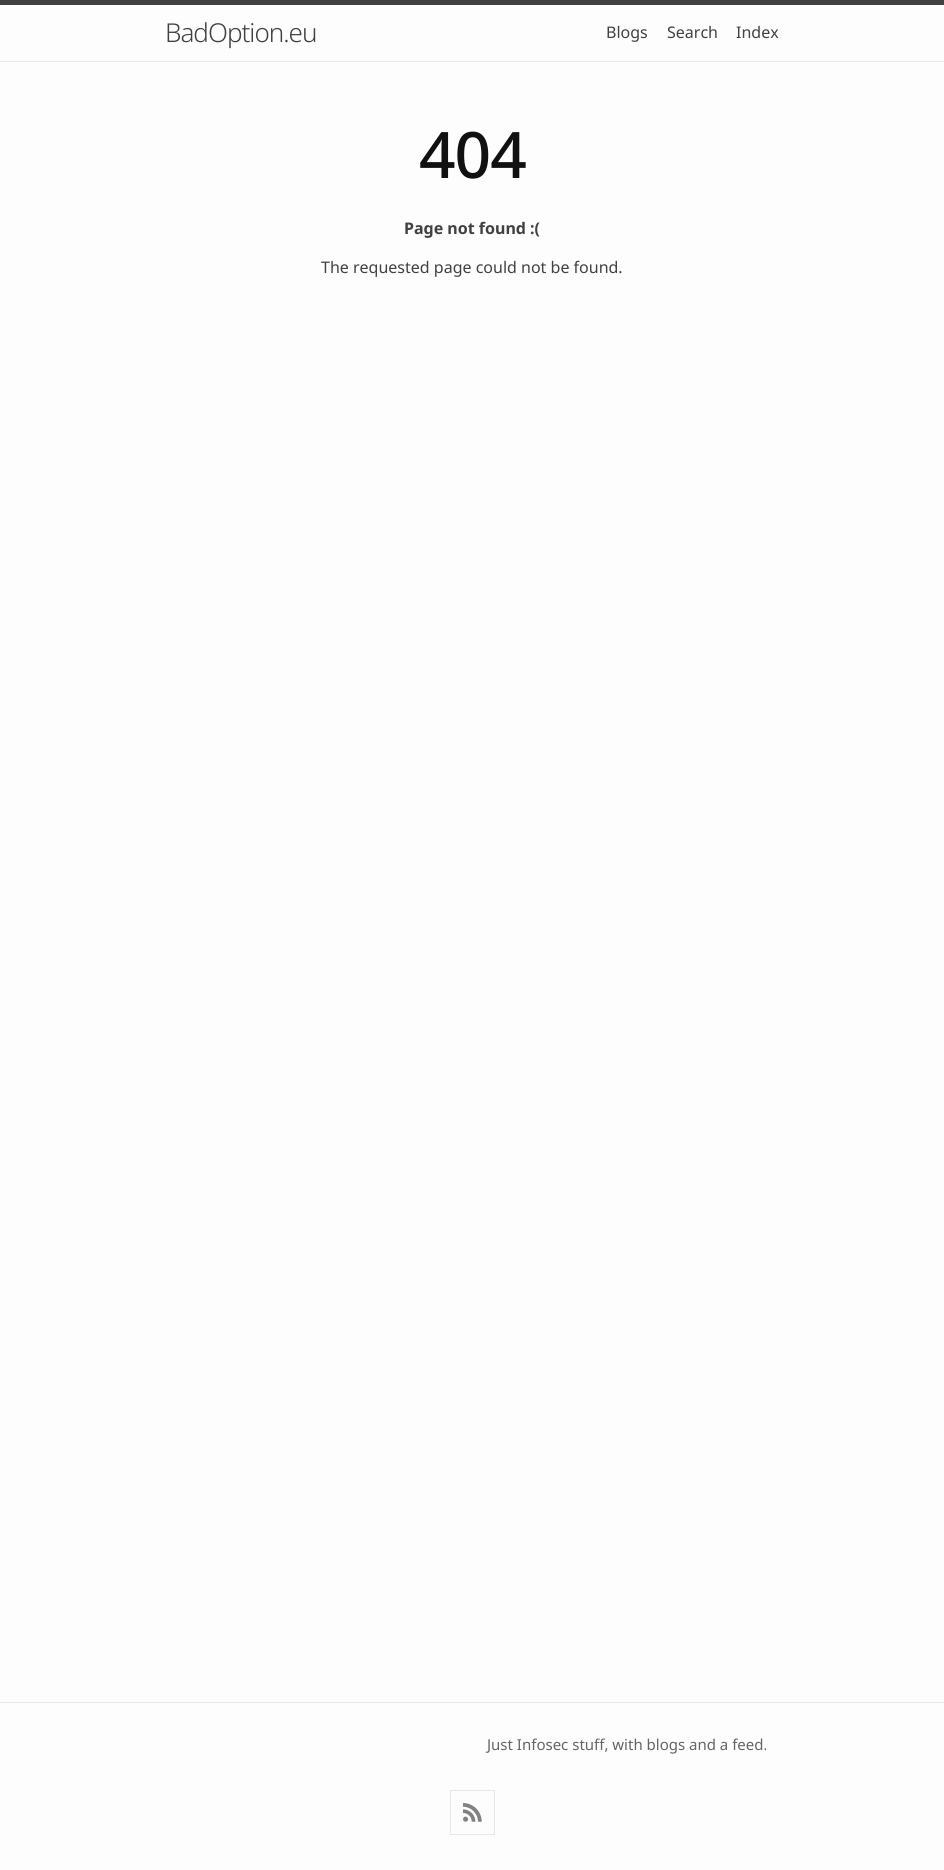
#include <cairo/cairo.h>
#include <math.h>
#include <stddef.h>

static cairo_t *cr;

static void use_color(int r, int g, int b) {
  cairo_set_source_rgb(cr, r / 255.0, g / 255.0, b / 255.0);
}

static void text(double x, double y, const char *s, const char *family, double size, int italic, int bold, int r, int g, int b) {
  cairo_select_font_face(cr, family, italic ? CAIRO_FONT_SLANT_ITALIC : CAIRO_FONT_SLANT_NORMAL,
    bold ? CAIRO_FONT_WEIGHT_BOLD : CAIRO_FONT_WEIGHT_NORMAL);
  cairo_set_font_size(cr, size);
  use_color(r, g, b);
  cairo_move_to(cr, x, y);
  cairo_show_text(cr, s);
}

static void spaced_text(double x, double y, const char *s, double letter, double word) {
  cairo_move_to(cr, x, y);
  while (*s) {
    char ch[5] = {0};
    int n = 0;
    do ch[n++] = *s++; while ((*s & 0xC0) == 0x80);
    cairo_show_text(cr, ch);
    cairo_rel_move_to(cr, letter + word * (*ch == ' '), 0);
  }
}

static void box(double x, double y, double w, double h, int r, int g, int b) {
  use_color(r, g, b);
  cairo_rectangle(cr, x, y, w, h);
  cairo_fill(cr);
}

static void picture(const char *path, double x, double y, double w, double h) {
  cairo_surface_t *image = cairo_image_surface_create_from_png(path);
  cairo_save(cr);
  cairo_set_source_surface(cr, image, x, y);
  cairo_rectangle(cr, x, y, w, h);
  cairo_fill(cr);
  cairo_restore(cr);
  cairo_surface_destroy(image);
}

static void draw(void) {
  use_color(253, 253, 253);
  cairo_paint(cr);
  box(0, 0, 944, 5, 65, 65, 65);
  box(0, 61, 944, 1, 231, 231, 231);
  box(0, 1702, 944, 1, 231, 231, 231);
  cairo_rectangle(cr, 450.5, 1790.5, 44, 44);
  cairo_set_line_width(cr, 1);
  cairo_stroke(cr);
  picture("img_01.png", 463, 1803, 19, 19);
  cairo_select_font_face(cr, "Noto Sans Light", CAIRO_FONT_SLANT_NORMAL, CAIRO_FONT_WEIGHT_NORMAL);
  cairo_set_font_size(cr, 26);
  use_color(65, 65, 65);
  spaced_text(165, 42, "BadOption.eu", -1, 0);
  text(606, 38, "Blogs", "Noto Sans", 16, 0, 0, 65, 65, 65);
  text(667, 38, "Search", "Noto Sans", 16, 0, 0, 65, 65, 65);
  text(736, 38, "Index", "Noto Sans", 16, 0, 0, 65, 65, 65);
  cairo_select_font_face(cr, "Noto Sans Medium", CAIRO_FONT_SLANT_NORMAL, CAIRO_FONT_WEIGHT_NORMAL);
  cairo_set_font_size(cr, 64);
  use_color(17, 17, 17);
  spaced_text(419, 178, "404", -1, 0);
  text(404, 234, "Page not found :(", "Noto Sans", 16, 0, 1, 65, 65, 65);
  text(321, 273, "The requested page could not be found.", "Noto Sans", 16, 0, 0, 65, 65, 65);
  text(487, 1750, "Just Infosec stuff, with blogs and a feed.", "Noto Sans", 15, 0, 0, 101, 101, 101);
}

int main(void) {
  cairo_surface_t *surface = cairo_image_surface_create(CAIRO_FORMAT_RGB24, 944, 1870);
  cr = cairo_create(surface);
  cairo_font_options_t *options = cairo_font_options_create();
  cairo_font_options_set_hint_metrics(options, CAIRO_HINT_METRICS_OFF);
  cairo_font_options_set_hint_style(options, CAIRO_HINT_STYLE_NONE);
  cairo_set_font_options(cr, options);
  cairo_set_miter_limit(cr, 4);
  draw();
  cairo_surface_write_to_png(surface, "out.png");
  cairo_font_options_destroy(options);
  cairo_destroy(cr);
  cairo_surface_destroy(surface);
  return 0;
}
